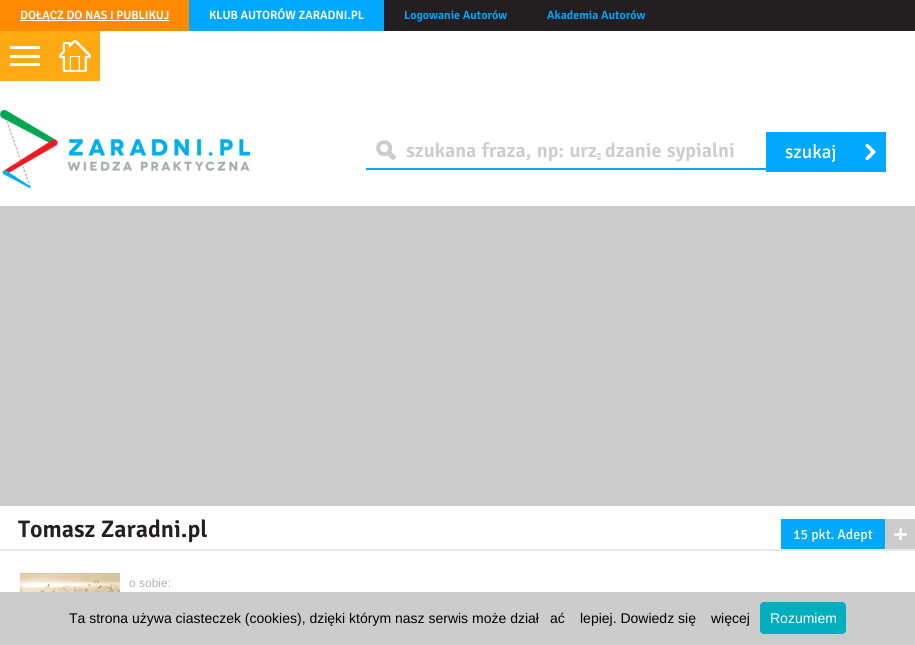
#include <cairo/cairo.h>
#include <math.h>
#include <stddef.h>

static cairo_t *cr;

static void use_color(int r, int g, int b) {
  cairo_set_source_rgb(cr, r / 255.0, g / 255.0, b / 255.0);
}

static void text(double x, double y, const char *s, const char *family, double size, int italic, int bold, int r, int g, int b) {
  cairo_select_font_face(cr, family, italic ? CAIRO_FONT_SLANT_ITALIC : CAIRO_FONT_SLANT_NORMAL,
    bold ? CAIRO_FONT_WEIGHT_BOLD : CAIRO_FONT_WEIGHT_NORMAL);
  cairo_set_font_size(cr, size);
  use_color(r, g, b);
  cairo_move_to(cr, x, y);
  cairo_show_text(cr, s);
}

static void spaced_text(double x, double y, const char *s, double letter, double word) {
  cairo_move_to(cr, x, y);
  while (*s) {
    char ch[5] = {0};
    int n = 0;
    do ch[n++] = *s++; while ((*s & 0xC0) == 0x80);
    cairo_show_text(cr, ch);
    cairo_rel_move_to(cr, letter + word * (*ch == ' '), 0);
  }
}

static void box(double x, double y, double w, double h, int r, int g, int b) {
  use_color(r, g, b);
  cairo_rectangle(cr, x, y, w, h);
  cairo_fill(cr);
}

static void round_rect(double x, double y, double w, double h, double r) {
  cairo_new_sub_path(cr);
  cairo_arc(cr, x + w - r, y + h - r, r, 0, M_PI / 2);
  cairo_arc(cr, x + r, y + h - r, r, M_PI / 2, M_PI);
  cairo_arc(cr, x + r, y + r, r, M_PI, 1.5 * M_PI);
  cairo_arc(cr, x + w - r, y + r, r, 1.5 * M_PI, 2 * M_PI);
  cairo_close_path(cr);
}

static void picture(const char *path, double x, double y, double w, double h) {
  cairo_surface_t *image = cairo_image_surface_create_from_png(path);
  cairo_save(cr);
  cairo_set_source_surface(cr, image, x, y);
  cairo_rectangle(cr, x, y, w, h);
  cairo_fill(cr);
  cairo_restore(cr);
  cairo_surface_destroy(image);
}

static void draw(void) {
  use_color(204, 204, 204);
  cairo_paint(cr);
  box(0, 31, 915, 175, 255, 255, 255);
  box(384, 0, 531, 31, 35, 31, 32);
  box(0, 0, 189, 31, 255, 138, 0);
  box(20, 20, 149, 1, 255, 255, 255);
  box(189, 0, 195, 31, 0, 168, 255);
  box(0, 31, 100, 50, 255, 169, 19);
  box(10, 46, 30, 3, 255, 255, 255);
  box(10, 55, 30, 3, 255, 255, 255);
  box(10, 63, 30, 3, 255, 255, 255);
  picture("img_01.png", 59, 40, 32, 32);
  picture("img_02.png", 0, 110, 250, 78);
  picture("img_03.png", 376, 140, 20, 20);
  box(366, 168, 400, 2, 0, 168, 255);
  box(766, 132, 120, 40, 0, 168, 255);
  picture("img_04.png", 865, 144, 11, 16);
  box(0, 506, 915, 86, 255, 255, 255);
  box(0, 549, 915, 2, 232, 232, 232);
  box(781, 519, 104, 30, 0, 168, 255);
  box(885, 519, 30, 30, 204, 204, 204);
  picture("img_05.png", 894, 528, 13, 12);
  picture("img_06.png", 20, 573, 100, 19);
  box(0, 644, 915, 1, 211, 208, 208);
  use_color(0, 175, 191);
  round_rect(760, 602, 86, 32, 4);
  cairo_fill(cr);
  text(20, 19, "DOŁĄCZ DO NAS I PUBLIKUJ", "Signika SemiBold", 12, 0, 0, 255, 255, 255);
  text(209, 19, "KLUB AUTORÓW ZARADNI.PL", "Signika SemiBold", 12, 0, 0, 255, 255, 255);
  text(404, 19, "Logowanie Autorów", "Signika SemiBold", 12, 0, 0, 0, 168, 255);
  text(547, 19, "Akademia Autorów", "Signika SemiBold", 12, 0, 0, 0, 168, 255);
  cairo_set_font_size(cr, 20);
  use_color(204, 204, 204);
  spaced_text(406, 157, "szukana fraza, np: urz", 0, 1);
  text(597, 157, "ą", "Wavefont ExtraBold", 20, 0, 0, 204, 204, 204);
  cairo_select_font_face(cr, "Signika SemiBold", CAIRO_FONT_SLANT_NORMAL, CAIRO_FONT_WEIGHT_NORMAL);
  spaced_text(605, 157, "dzanie sypialni", 0, 1);
  text(785, 158, "szukaj", "Signika", 19, 0, 0, 255, 255, 255);
  text(18, 537, "Tomasz Zaradni.pl", "Signika SemiBold", 24, 0, 0, 35, 31, 32);
  text(793, 539, "15 pkt. Adept", "Signika", 14, 0, 0, 255, 255, 255);
  text(129, 587, "o sobie:", "Liberation Sans", 12, 0, 0, 178, 178, 178);
  text(69, 623, "Ta strona używa ciasteczek (cookies), dzięki którym nasz serwis może dział", "Liberation Sans", 14, 0, 0, 0, 0, 0);
  text(550, 623, "ać", "Liberation Sans", 14, 0, 0, 0, 0, 0);
  text(580, 623, "lepiej. Dowiedz się", "Liberation Sans", 14, 0, 0, 0, 0, 0);
  text(711, 623, "więcej", "Liberation Sans", 14, 0, 0, 0, 0, 0);
  text(770, 623, "Rozumiem", "Liberation Sans", 14, 0, 0, 255, 255, 255);
}

int main(void) {
  cairo_surface_t *surface = cairo_image_surface_create(CAIRO_FORMAT_RGB24, 915, 645);
  cr = cairo_create(surface);
  cairo_font_options_t *options = cairo_font_options_create();
  cairo_font_options_set_hint_metrics(options, CAIRO_HINT_METRICS_OFF);
  cairo_font_options_set_hint_style(options, CAIRO_HINT_STYLE_NONE);
  cairo_set_font_options(cr, options);
  cairo_set_miter_limit(cr, 4);
  draw();
  cairo_surface_write_to_png(surface, "out.png");
  cairo_font_options_destroy(options);
  cairo_destroy(cr);
  cairo_surface_destroy(surface);
  return 0;
}
